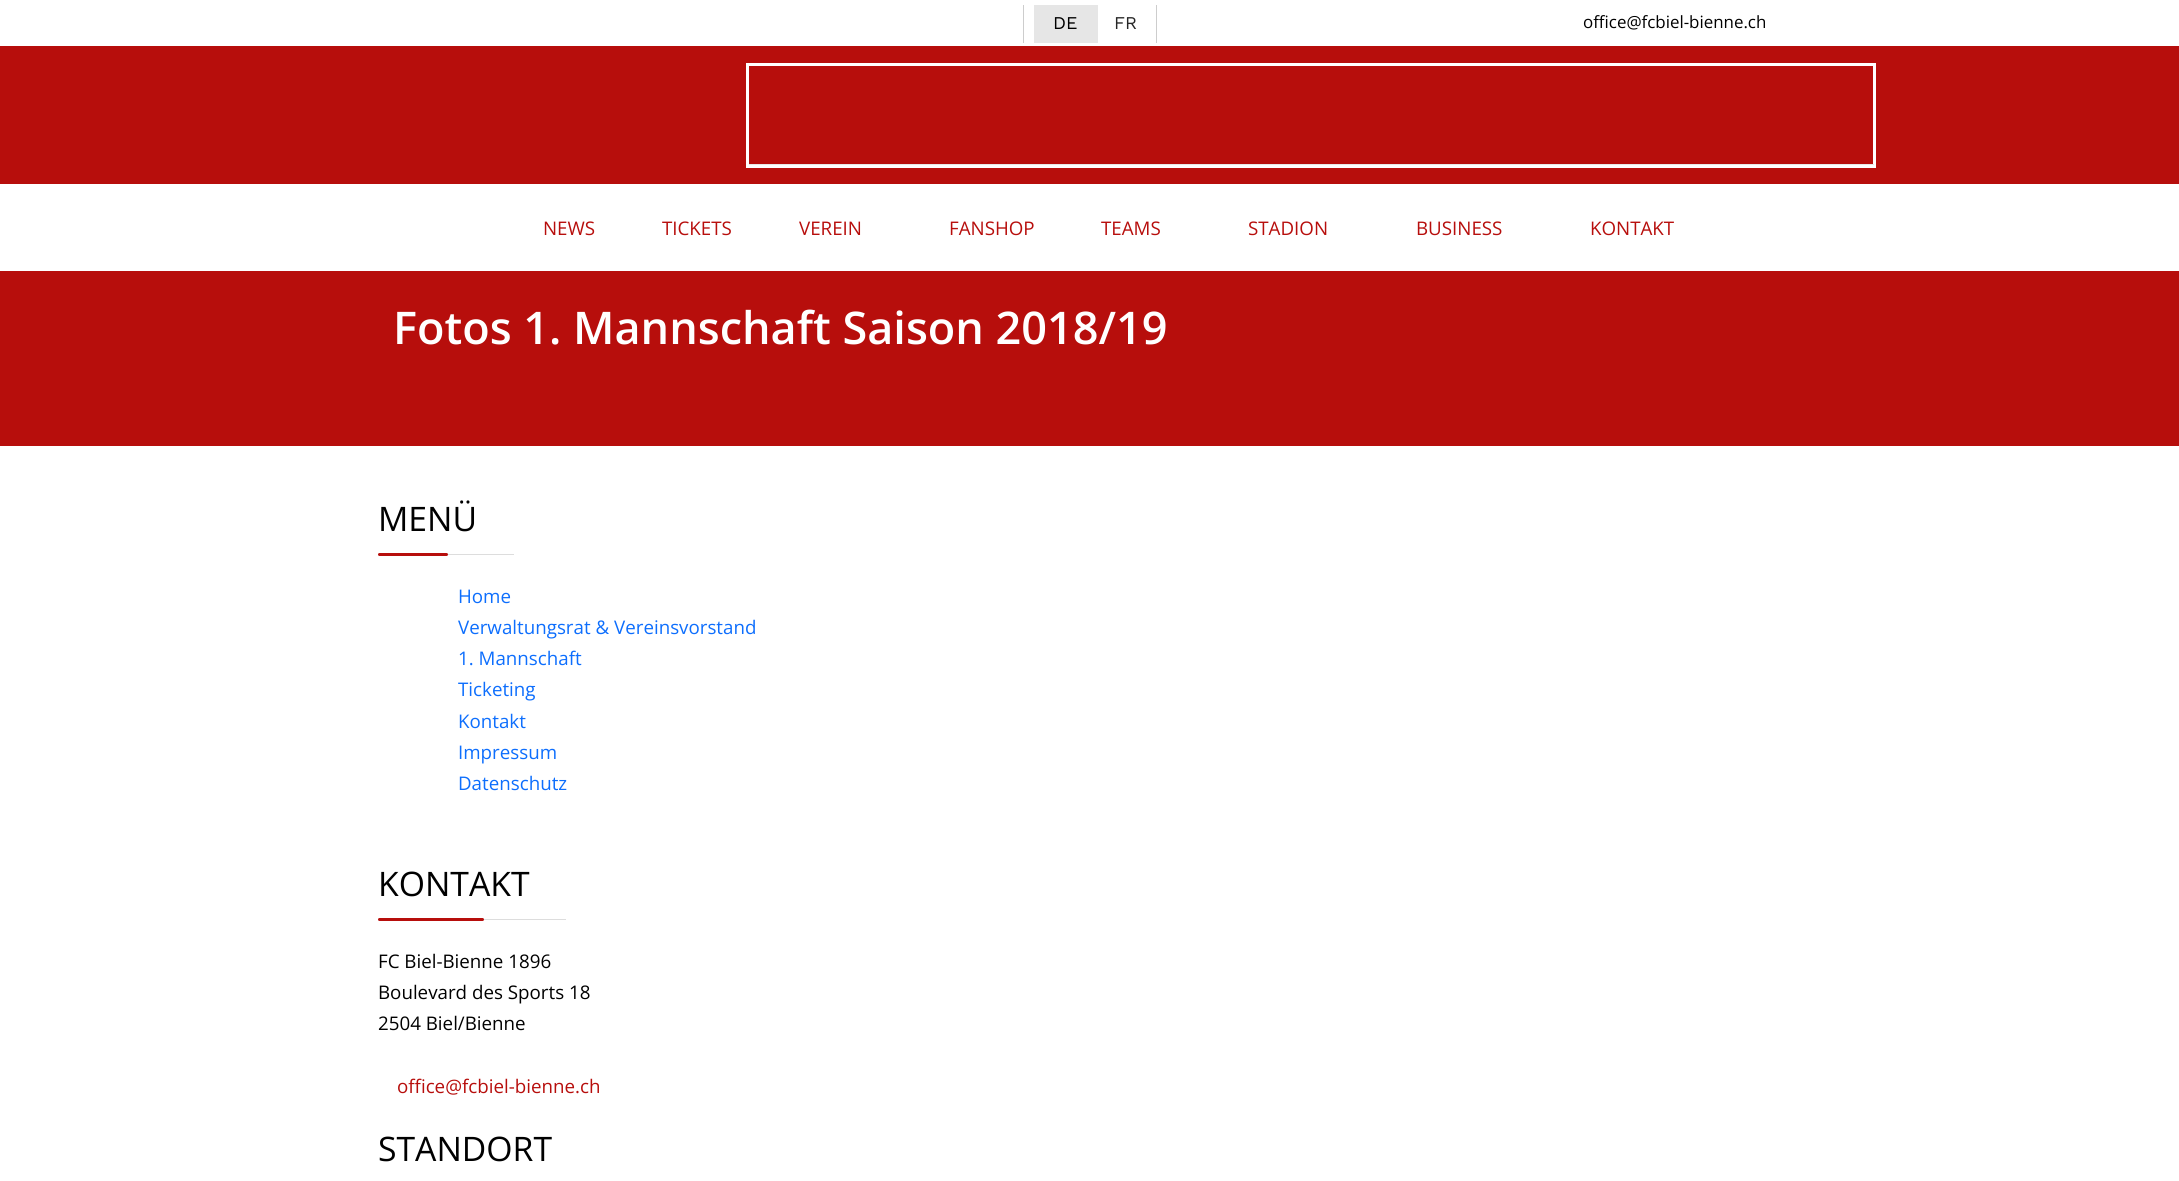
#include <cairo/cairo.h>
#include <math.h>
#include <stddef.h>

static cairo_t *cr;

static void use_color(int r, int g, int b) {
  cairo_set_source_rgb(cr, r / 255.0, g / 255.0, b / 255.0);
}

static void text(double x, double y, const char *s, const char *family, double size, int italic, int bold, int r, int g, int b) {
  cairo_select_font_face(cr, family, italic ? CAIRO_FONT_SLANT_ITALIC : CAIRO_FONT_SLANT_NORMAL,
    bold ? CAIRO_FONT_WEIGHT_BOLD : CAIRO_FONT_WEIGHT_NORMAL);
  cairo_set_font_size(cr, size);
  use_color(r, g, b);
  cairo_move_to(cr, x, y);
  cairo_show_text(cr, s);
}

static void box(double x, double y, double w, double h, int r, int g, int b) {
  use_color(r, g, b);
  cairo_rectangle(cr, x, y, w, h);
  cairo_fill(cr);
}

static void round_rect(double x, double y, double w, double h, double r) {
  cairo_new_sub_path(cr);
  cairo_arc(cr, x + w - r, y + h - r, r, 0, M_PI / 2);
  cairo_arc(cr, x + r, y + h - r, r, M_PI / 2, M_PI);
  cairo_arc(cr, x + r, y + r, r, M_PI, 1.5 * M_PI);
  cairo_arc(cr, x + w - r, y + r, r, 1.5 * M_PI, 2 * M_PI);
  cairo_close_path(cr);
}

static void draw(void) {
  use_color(183, 14, 12);
  cairo_paint(cr);
  box(0, 0, 2179, 46, 255, 255, 255);
  box(1156, 5, 1, 38, 205, 205, 205);
  box(1023, 5, 1, 38, 205, 205, 205);
  box(1034, 5, 64, 38, 230, 230, 230);
  cairo_rectangle(cr, 747.5, 64.5, 1127, 102);
  use_color(255, 255, 255);
  cairo_set_line_width(cr, 3);
  cairo_stroke(cr);
  box(749, 164, 1125, 1, 232, 232, 232);
  box(0, 184, 2179, 87, 255, 255, 255);
  box(0, 446, 2179, 735, 255, 255, 255);
  box(378, 554, 136, 1, 221, 221, 221);
  use_color(183, 14, 12);
  round_rect(378, 553, 70, 3, 1.5);
  cairo_fill(cr);
  box(378, 919, 188, 1, 221, 221, 221);
  use_color(183, 14, 12);
  round_rect(378, 918, 106, 3, 1.5);
  cairo_fill(cr);
  text(1053, 29, "DE", "Work Sans", 18, 0, 0, 0, 0, 0);
  text(1114, 29, "FR", "Work Sans", 18, 0, 0, 38, 38, 38);
  text(1583, 28, "office@fcbiel-bienne.ch", "Open Sans", 16.9, 0, 0, 0, 0, 0);
  text(543, 235, "NEWS", "Open Sans", 18.75, 0, 0, 183, 14, 12);
  text(662, 235, "TICKETS", "Open Sans", 18.75, 0, 0, 183, 14, 12);
  text(799, 235, "VEREIN", "Open Sans", 18.75, 0, 0, 183, 14, 12);
  text(949, 235, "FANSHOP", "Open Sans", 18.75, 0, 0, 183, 14, 12);
  text(1101, 235, "TEAMS", "Open Sans", 18.75, 0, 0, 183, 14, 12);
  text(1248, 235, "STADION", "Open Sans", 18.75, 0, 0, 183, 14, 12);
  text(1416, 235, "BUSINESS", "Open Sans", 18.75, 0, 0, 183, 14, 12);
  text(1590, 235, "KONTAKT", "Open Sans", 18.75, 0, 0, 183, 14, 12);
  text(393, 344, "Fotos 1. Mannschaft Saison 2018/19", "Open Sans SemiBold", 45, 0, 0, 255, 255, 255);
  text(378, 531, "MENÜ", "Open Sans", 33.75, 0, 0, 0, 0, 0);
  text(458, 603, "Home", "Open Sans", 18.75, 0, 0, 13, 110, 253);
  text(458, 634, "Verwaltungsrat & Vereinsvorstand", "Open Sans", 18.75, 0, 0, 13, 110, 253);
  text(458, 665, "1. Mannschaft", "Open Sans", 18.75, 0, 0, 13, 110, 253);
  text(458, 696, "Ticketing", "Open Sans", 18.75, 0, 0, 13, 110, 253);
  text(458, 728, "Kontakt", "Open Sans", 18.75, 0, 0, 13, 110, 253);
  text(458, 759, "Impressum", "Open Sans", 18.75, 0, 0, 13, 110, 253);
  text(458, 790, "Datenschutz", "Open Sans", 18.75, 0, 0, 13, 110, 253);
  text(378, 896, "KONTAKT", "Open Sans", 33.75, 0, 0, 0, 0, 0);
  text(378, 968, "FC Biel-Bienne 1896", "Open Sans", 18.75, 0, 0, 0, 0, 0);
  text(378, 999, "Boulevard des Sports 18", "Open Sans", 18.75, 0, 0, 0, 0, 0);
  text(378, 1030, "2504 Biel/Bienne", "Open Sans", 18.75, 0, 0, 0, 0, 0);
  text(397, 1093, "office@fcbiel-bienne.ch", "Open Sans", 18.75, 0, 0, 183, 14, 12);
  text(378, 1161, "STANDORT", "Open Sans", 33.75, 0, 0, 0, 0, 0);
}

int main(void) {
  cairo_surface_t *surface = cairo_image_surface_create(CAIRO_FORMAT_RGB24, 2179, 1181);
  cr = cairo_create(surface);
  cairo_font_options_t *options = cairo_font_options_create();
  cairo_font_options_set_hint_metrics(options, CAIRO_HINT_METRICS_OFF);
  cairo_font_options_set_hint_style(options, CAIRO_HINT_STYLE_NONE);
  cairo_set_font_options(cr, options);
  cairo_set_miter_limit(cr, 4);
  draw();
  cairo_surface_write_to_png(surface, "out.png");
  cairo_font_options_destroy(options);
  cairo_destroy(cr);
  cairo_surface_destroy(surface);
  return 0;
}
